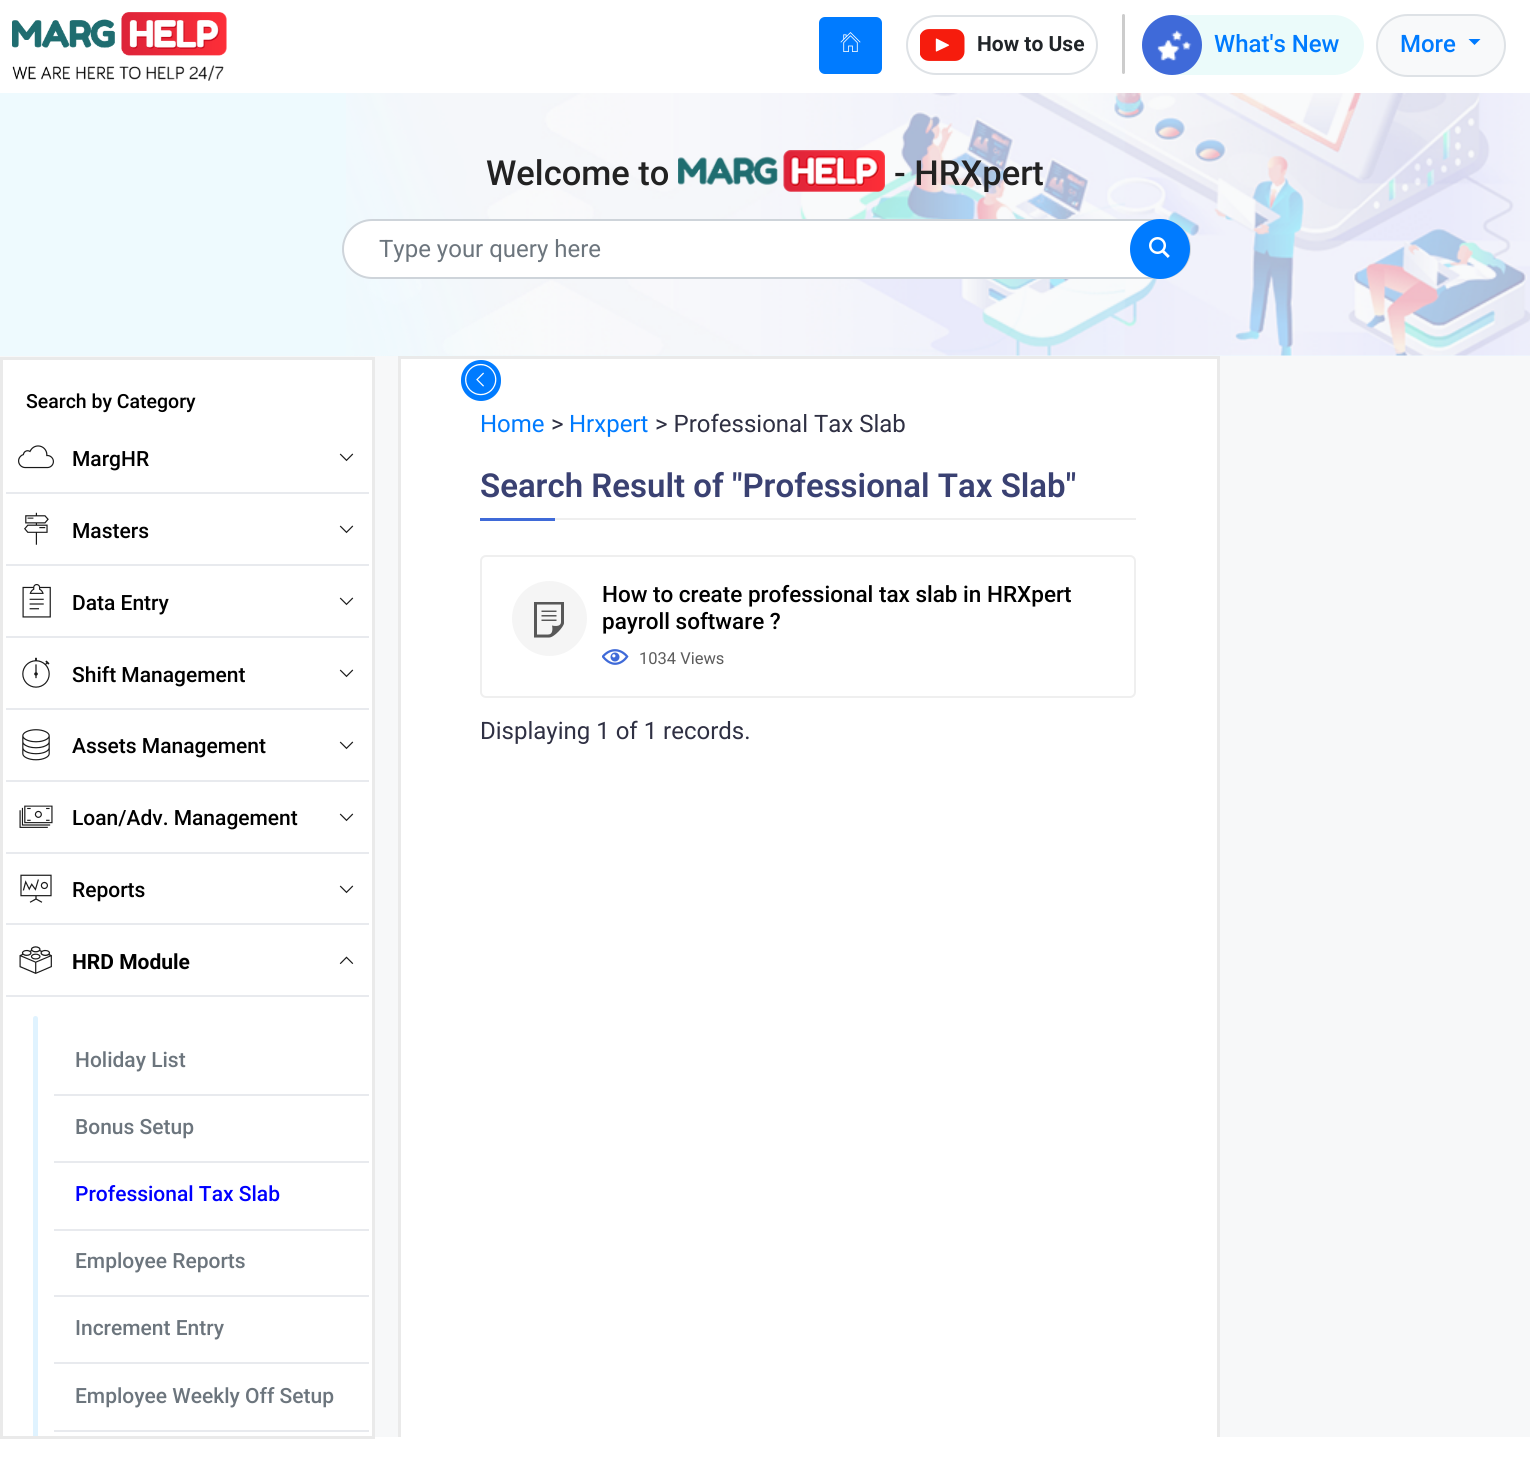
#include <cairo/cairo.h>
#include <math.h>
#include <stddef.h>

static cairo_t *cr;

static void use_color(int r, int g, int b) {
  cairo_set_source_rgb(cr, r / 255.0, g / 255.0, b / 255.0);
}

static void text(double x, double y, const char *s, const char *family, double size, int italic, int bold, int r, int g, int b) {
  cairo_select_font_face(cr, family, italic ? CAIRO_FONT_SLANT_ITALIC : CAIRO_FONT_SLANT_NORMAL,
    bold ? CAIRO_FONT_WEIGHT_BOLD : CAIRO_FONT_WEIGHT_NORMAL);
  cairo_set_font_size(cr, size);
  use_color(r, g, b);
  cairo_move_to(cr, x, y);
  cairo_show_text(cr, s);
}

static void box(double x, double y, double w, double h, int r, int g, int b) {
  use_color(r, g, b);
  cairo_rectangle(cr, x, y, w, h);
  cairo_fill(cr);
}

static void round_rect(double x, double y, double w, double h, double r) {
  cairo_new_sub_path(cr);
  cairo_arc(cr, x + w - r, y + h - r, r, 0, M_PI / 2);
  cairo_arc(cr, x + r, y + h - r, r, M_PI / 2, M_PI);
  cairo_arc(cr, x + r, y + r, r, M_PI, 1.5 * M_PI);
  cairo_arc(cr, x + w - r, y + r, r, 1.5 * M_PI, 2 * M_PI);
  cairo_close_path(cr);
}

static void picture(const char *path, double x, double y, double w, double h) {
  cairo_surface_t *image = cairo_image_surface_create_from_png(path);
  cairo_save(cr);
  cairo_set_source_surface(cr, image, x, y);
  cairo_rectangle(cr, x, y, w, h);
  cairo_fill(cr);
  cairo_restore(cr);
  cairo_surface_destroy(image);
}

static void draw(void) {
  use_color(255, 255, 255);
  cairo_paint(cr);
  picture("img_01.png", 12, 12, 215, 69);
  use_color(0, 123, 255);
  round_rect(820, 18, 61, 55, 5);
  cairo_fill_preserve(cr);
  cairo_stroke(cr);
  picture("img_02.png", 840, 32, 21, 20);
  round_rect(907, 16, 190, 58, 29);
  use_color(222, 226, 230);
  cairo_stroke(cr);
  picture("img_03.png", 920, 29, 45, 32);
  use_color(204, 204, 204);
  round_rect(1122, 14, 3, 60, 1.5);
  cairo_fill(cr);
  use_color(235, 251, 250);
  round_rect(1149, 15, 215, 60, 30);
  cairo_fill(cr);
  use_color(63, 106, 217);
  cairo_arc(cr, 1172, 45, 30, 0, 2 * M_PI);
  cairo_fill(cr);
  picture("img_04.png", 1157, 30, 35, 31);
  use_color(248, 249, 250);
  round_rect(1377, 15, 128, 61, 30.5);
  cairo_fill_preserve(cr);
  use_color(222, 226, 230);
  cairo_stroke(cr);
  use_color(0, 123, 255);
  cairo_new_path(cr);
  cairo_move_to(cr, 1468.5, 39);
  cairo_line_to(cr, 1480.5, 39);
  cairo_line_to(cr, 1474.5, 45);
  cairo_close_path(cr);
  cairo_fill(cr);
  box(0, 93, 1530, 263, 238, 250, 254);
  picture("img_05.png", 346, 93, 1184, 263);
  picture("img_06.png", 678, 150, 207, 42);
  use_color(255, 255, 255);
  round_rect(343, 220, 847, 58, 29);
  cairo_fill_preserve(cr);
  use_color(206, 212, 218);
  cairo_stroke(cr);
  use_color(0, 123, 255);
  cairo_arc(cr, 1160, 249, 29, 0, 2 * M_PI);
  cairo_fill_preserve(cr);
  cairo_stroke(cr);
  picture("img_07.png", 1149, 237, 21, 21);
  box(0, 356, 1530, 1081, 247, 248, 249);
  use_color(255, 255, 255);
  cairo_rectangle(cr, 1.5, 358.5, 372, 1079);
  cairo_fill_preserve(cr);
  use_color(234, 234, 234);
  cairo_set_line_width(cr, 3);
  cairo_stroke(cr);
  box(401, 359, 816, 1078, 255, 255, 255);
  cairo_save(cr);
  cairo_rectangle(cr, 375, 356, 1155, 1081);
  cairo_clip(cr);
  cairo_rectangle(cr, 399.5, 357.5, 819, 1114);
  use_color(234, 234, 234);
  cairo_stroke(cr);
  cairo_restore(cr);
  use_color(0, 123, 255);
  round_rect(461, 360, 40, 41, 20);
  cairo_fill(cr);
  picture("img_08.png", 465, 363, 32, 33);
  box(6, 492, 363, 2, 232, 234, 238);
  picture("img_09.png", 18, 445, 36, 24);
  picture("img_10.png", 339, 453, 15, 9);
  box(6, 564, 363, 2, 232, 234, 238);
  picture("img_11.png", 24, 512, 25, 33);
  picture("img_10.png", 339, 525, 15, 9);
  box(6, 636, 363, 2, 232, 234, 238);
  picture("img_12.png", 22, 584, 29, 34);
  picture("img_10.png", 339, 597, 15, 9);
  box(6, 708, 363, 2, 232, 234, 238);
  picture("img_13.png", 22, 657, 28, 31);
  picture("img_10.png", 339, 669, 15, 9);
  box(6, 780, 363, 2, 232, 234, 238);
  picture("img_14.png", 22, 729, 28, 32);
  picture("img_10.png", 339, 741, 15, 9);
  box(6, 852, 363, 2, 232, 234, 238);
  picture("img_15.png", 19, 805, 34, 23);
  picture("img_10.png", 339, 813, 15, 9);
  box(6, 923, 363, 2, 232, 234, 238);
  picture("img_16.png", 20, 874, 32, 29);
  picture("img_10.png", 339, 885, 15, 9);
  box(6, 995, 363, 2, 232, 234, 238);
  picture("img_17.png", 19, 946, 33, 28);
  picture("img_18.png", 339, 956, 15, 9);
  use_color(224, 243, 255);
  cairo_new_path(cr);
  cairo_move_to(cr, 35.5, 1016);
  cairo_curve_to(cr, 37, 1016, 38, 1017, 38, 1018.5);
  cairo_line_to(cr, 38, 1436);
  cairo_line_to(cr, 33, 1436);
  cairo_line_to(cr, 33, 1018.5);
  cairo_curve_to(cr, 33, 1017, 34, 1016, 35.5, 1016);
  cairo_close_path(cr);
  cairo_fill(cr);
  box(54, 1094, 315, 2, 232, 234, 238);
  box(54, 1161, 315, 2, 232, 234, 238);
  box(54, 1229, 315, 2, 232, 234, 238);
  box(54, 1295, 315, 2, 232, 234, 238);
  box(54, 1362, 315, 2, 232, 234, 238);
  box(54, 1430, 315, 2, 232, 234, 238);
  box(555, 518, 581, 2, 239, 239, 239);
  box(480, 518, 75, 3, 63, 106, 216);
  round_rect(481, 556, 654, 141, 5);
  use_color(239, 239, 239);
  cairo_set_line_width(cr, 2);
  cairo_stroke(cr);
  use_color(245, 245, 245);
  cairo_arc(cr, 549.5, 618.5, 37.5, 0, 2 * M_PI);
  cairo_fill(cr);
  picture("img_19.png", 534, 602, 30, 36);
  picture("img_20.png", 602, 649, 27, 16);
  text(977, 51, "How to Use", "Roboto", 21, 0, 1, 33, 37, 41);
  text(1214, 52, "What's New", "Roboto Medium", 24, 0, 0, 0, 123, 255);
  text(1400, 52, "More", "Roboto Medium", 24, 0, 0, 0, 123, 255);
  text(486, 185, "Welcome to", "Roboto Medium", 34.5, 0, 0, 34, 34, 34);
  text(894, 185, "- HRXpert", "Roboto Medium", 34.5, 0, 0, 34, 34, 34);
  text(379, 257, "Type your query here", "Roboto", 24, 0, 0, 108, 117, 125);
  text(26, 408, "Search by Category", "Roboto Medium", 19.5, 0, 0, 0, 0, 0);
  text(72, 466, "MargHR", "Roboto Medium", 21, 0, 0, 0, 0, 0);
  text(72, 538, "Masters", "Roboto Medium", 21, 0, 0, 0, 0, 0);
  text(72, 610, "Data Entry", "Roboto Medium", 21, 0, 0, 0, 0, 0);
  text(72, 682, "Shift Management", "Roboto Medium", 21, 0, 0, 0, 0, 0);
  text(72, 753, "Assets Management", "Roboto Medium", 21, 0, 0, 0, 0, 0);
  text(72, 825, "Loan/Adv. Management", "Roboto Medium", 21, 0, 0, 0, 0, 0);
  text(72, 897, "Reports", "Roboto Medium", 21, 0, 0, 0, 0, 0);
  text(72, 969, "HRD Module", "Roboto", 21, 0, 1, 0, 0, 0);
  text(75, 1067, "Holiday List", "Roboto Medium", 21, 0, 0, 108, 117, 125);
  text(75, 1134, "Bonus Setup", "Roboto Medium", 21, 0, 0, 108, 117, 125);
  text(75, 1201, "Professional Tax Slab", "Roboto Medium", 21, 0, 0, 0, 0, 255);
  text(75, 1268, "Employee Reports", "Roboto Medium", 21, 0, 0, 108, 117, 125);
  text(75, 1335, "Increment Entry", "Roboto Medium", 21, 0, 0, 108, 117, 125);
  text(75, 1403, "Employee Weekly Off Setup", "Roboto Medium", 21, 0, 0, 108, 117, 125);
  text(480, 432, "Home", "Roboto", 24, 0, 0, 0, 123, 255);
  text(551, 432, ">", "Roboto", 24, 0, 0, 47, 48, 67);
  text(569, 432, "Hrxpert", "Roboto", 24, 0, 0, 0, 123, 255);
  text(655, 432, "> Professional Tax Slab", "Roboto", 24, 0, 0, 47, 48, 67);
  text(480, 497, "Search Result of \"Professional Tax Slab\"", "Roboto SemiBold", 33, 0, 0, 58, 65, 114);
  text(602, 602, "How to create professional tax slab in HRXpert", "Roboto Medium", 22.5, 0, 0, 0, 0, 0);
  text(602, 629, "payroll software ?", "Roboto Medium", 22.5, 0, 0, 0, 0, 0);
  text(639, 664, "1034 Views", "Roboto", 16.5, 0, 0, 92, 92, 92);
  text(480, 739, "Displaying 1 of 1 records.", "Roboto", 24, 0, 0, 47, 48, 67);
}

int main(void) {
  cairo_surface_t *surface = cairo_image_surface_create(CAIRO_FORMAT_RGB24, 1530, 1470);
  cr = cairo_create(surface);
  cairo_font_options_t *options = cairo_font_options_create();
  cairo_font_options_set_hint_metrics(options, CAIRO_HINT_METRICS_OFF);
  cairo_font_options_set_hint_style(options, CAIRO_HINT_STYLE_NONE);
  cairo_set_font_options(cr, options);
  cairo_set_miter_limit(cr, 4);
  draw();
  cairo_surface_write_to_png(surface, "out.png");
  cairo_font_options_destroy(options);
  cairo_destroy(cr);
  cairo_surface_destroy(surface);
  return 0;
}
